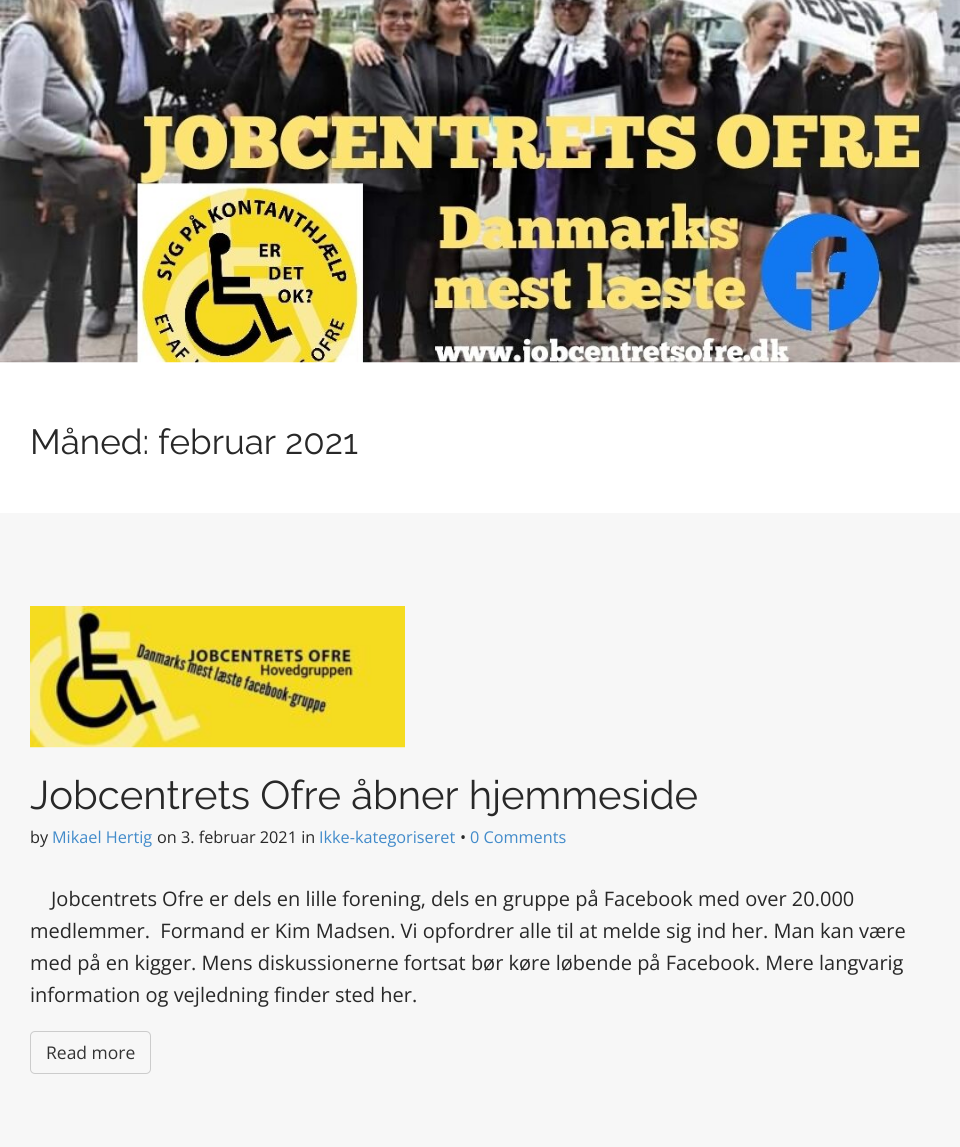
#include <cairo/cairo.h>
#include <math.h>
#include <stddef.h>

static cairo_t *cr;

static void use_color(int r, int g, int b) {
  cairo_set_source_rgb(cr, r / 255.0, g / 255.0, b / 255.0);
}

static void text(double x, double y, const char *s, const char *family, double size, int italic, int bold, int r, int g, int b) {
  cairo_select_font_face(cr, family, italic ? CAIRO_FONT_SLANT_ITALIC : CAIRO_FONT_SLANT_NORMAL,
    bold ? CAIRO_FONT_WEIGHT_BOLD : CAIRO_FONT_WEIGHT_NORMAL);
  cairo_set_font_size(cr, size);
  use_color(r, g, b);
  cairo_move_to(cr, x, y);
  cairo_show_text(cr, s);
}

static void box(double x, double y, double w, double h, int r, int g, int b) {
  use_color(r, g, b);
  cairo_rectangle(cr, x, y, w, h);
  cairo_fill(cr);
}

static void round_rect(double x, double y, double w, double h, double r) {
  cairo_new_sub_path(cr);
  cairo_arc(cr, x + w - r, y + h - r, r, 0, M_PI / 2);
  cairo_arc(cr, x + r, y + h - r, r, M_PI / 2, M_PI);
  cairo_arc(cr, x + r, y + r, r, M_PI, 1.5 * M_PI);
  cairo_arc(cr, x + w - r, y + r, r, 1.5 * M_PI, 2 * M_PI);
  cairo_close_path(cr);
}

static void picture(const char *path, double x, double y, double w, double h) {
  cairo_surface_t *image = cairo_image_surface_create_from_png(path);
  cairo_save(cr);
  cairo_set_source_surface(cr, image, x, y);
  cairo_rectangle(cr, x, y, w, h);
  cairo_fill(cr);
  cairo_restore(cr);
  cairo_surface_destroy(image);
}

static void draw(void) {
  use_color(255, 255, 255);
  cairo_paint(cr);
  picture("img_01.png", 0, 0, 960, 363);
  box(0, 513, 960, 634, 247, 247, 247);
  picture("img_02.png", 30, 606, 375, 142);
  round_rect(30.5, 1031.5, 120, 42, 4.5);
  use_color(204, 204, 204);
  cairo_set_line_width(cr, 1);
  cairo_stroke(cr);
  text(30, 454, "Måned: februar 2021", "Raleway Thin", 35, 0, 0, 40, 40, 40);
  text(30, 809, "Jobcentrets Ofre åbner hjemmeside", "Raleway Thin", 40, 0, 0, 40, 40, 40);
  text(30, 843, "by", "Open Sans", 16.25, 0, 0, 40, 40, 40);
  text(52, 843, "Mikael Hertig", "Open Sans", 16.25, 0, 0, 66, 139, 202);
  text(157, 843, "on 3. februar 2021 in", "Open Sans", 16.25, 0, 0, 40, 40, 40);
  text(319, 843, "Ikke-kategoriseret", "Open Sans", 16.25, 0, 0, 66, 139, 202);
  text(460, 843, "•", "Open Sans", 16.25, 0, 0, 40, 40, 40);
  text(470, 843, "0 Comments", "Open Sans", 16.25, 0, 0, 66, 139, 202);
  text(51, 906, "Jobcentrets Ofre er dels en lille forening, dels en gruppe på Facebook med over 20.000", "Open Sans", 20, 0, 0, 40, 40, 40);
  text(30, 938, "medlemmer.  Formand er Kim Madsen. Vi opfordrer alle til at melde sig ind her. Man kan være", "Open Sans", 20, 0, 0, 40, 40, 40);
  text(30, 970, "med på en kigger. Mens diskussionerne fortsat bør køre løbende på Facebook. Mere langvarig", "Open Sans", 20, 0, 0, 40, 40, 40);
  text(30, 1002, "information og vejledning finder sted her.", "Open Sans", 20, 0, 0, 40, 40, 40);
  text(46, 1059, "Read more", "Open Sans", 17.5, 0, 0, 51, 51, 51);
}

int main(void) {
  cairo_surface_t *surface = cairo_image_surface_create(CAIRO_FORMAT_RGB24, 960, 1147);
  cr = cairo_create(surface);
  cairo_font_options_t *options = cairo_font_options_create();
  cairo_font_options_set_hint_metrics(options, CAIRO_HINT_METRICS_OFF);
  cairo_font_options_set_hint_style(options, CAIRO_HINT_STYLE_NONE);
  cairo_set_font_options(cr, options);
  cairo_set_miter_limit(cr, 4);
  draw();
  cairo_surface_write_to_png(surface, "out.png");
  cairo_font_options_destroy(options);
  cairo_destroy(cr);
  cairo_surface_destroy(surface);
  return 0;
}
